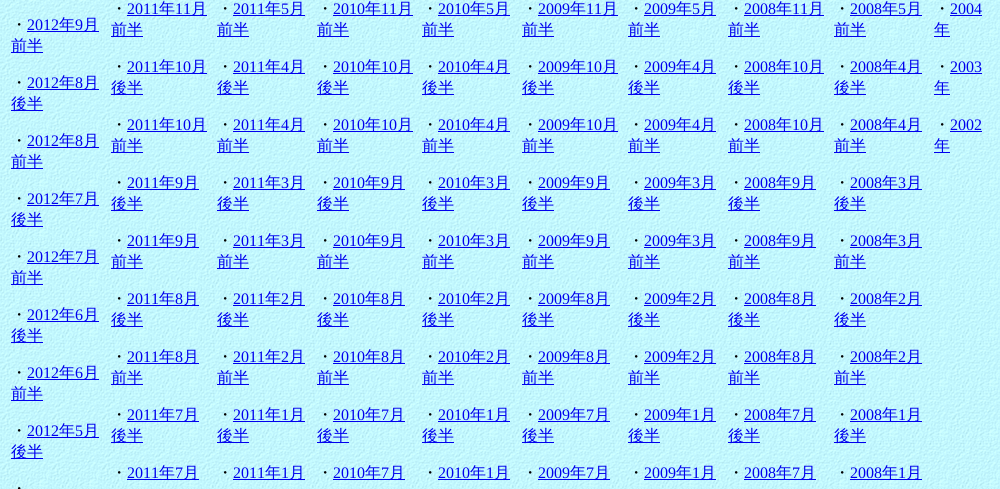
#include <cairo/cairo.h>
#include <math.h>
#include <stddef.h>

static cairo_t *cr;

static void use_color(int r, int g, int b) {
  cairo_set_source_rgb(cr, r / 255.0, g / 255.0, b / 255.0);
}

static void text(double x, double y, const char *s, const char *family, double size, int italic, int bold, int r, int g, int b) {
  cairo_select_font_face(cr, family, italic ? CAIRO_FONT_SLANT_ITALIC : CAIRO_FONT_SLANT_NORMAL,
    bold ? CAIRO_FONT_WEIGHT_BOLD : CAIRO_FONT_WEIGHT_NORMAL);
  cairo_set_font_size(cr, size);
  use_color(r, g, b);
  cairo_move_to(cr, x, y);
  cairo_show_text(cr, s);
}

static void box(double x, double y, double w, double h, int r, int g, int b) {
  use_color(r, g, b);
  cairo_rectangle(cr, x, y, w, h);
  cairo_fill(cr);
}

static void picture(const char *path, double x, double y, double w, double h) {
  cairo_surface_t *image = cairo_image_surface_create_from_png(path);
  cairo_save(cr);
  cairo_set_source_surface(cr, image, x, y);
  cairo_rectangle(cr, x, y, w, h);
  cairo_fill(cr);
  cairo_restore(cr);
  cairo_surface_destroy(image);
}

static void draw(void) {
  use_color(255, 255, 255);
  cairo_paint(cr);
  picture("img_01.png", 0, 0, 1000, 489);
  box(27, 31, 72, 1, 0, 0, 238);
  box(11, 52, 32, 1, 0, 0, 238);
  box(27, 89, 72, 1, 0, 0, 238);
  box(11, 110, 32, 1, 0, 0, 238);
  box(27, 147, 72, 1, 0, 0, 238);
  box(11, 168, 32, 1, 0, 0, 238);
  box(27, 205, 72, 1, 0, 0, 238);
  box(11, 226, 32, 1, 0, 0, 238);
  box(27, 263, 72, 1, 0, 0, 238);
  box(11, 284, 32, 1, 0, 0, 238);
  box(27, 321, 72, 1, 0, 0, 238);
  box(11, 342, 32, 1, 0, 0, 238);
  box(27, 379, 72, 1, 0, 0, 238);
  box(11, 400, 32, 1, 0, 0, 238);
  box(27, 437, 72, 1, 0, 0, 238);
  box(11, 458, 32, 1, 0, 0, 238);
  box(127, 15, 80, 1, 0, 0, 238);
  box(111, 36, 32, 1, 0, 0, 238);
  box(127, 73, 80, 1, 0, 0, 238);
  box(111, 94, 32, 1, 0, 0, 238);
  box(127, 131, 80, 1, 0, 0, 238);
  box(111, 152, 32, 1, 0, 0, 238);
  box(127, 189, 72, 1, 0, 0, 238);
  box(111, 210, 32, 1, 0, 0, 238);
  box(127, 247, 72, 1, 0, 0, 238);
  box(111, 268, 32, 1, 0, 0, 238);
  box(127, 305, 72, 1, 0, 0, 238);
  box(111, 326, 32, 1, 0, 0, 238);
  box(127, 363, 72, 1, 0, 0, 238);
  box(111, 384, 32, 1, 0, 0, 238);
  box(127, 421, 72, 1, 0, 0, 238);
  box(111, 442, 32, 1, 0, 0, 238);
  box(127, 479, 72, 1, 0, 0, 238);
  box(233, 15, 72, 1, 0, 0, 238);
  box(217, 36, 32, 1, 0, 0, 238);
  box(233, 73, 72, 1, 0, 0, 238);
  box(217, 94, 32, 1, 0, 0, 238);
  box(233, 131, 72, 1, 0, 0, 238);
  box(217, 152, 32, 1, 0, 0, 238);
  box(233, 189, 72, 1, 0, 0, 238);
  box(217, 210, 32, 1, 0, 0, 238);
  box(233, 247, 72, 1, 0, 0, 238);
  box(217, 268, 32, 1, 0, 0, 238);
  box(233, 305, 72, 1, 0, 0, 238);
  box(217, 326, 32, 1, 0, 0, 238);
  box(233, 363, 72, 1, 0, 0, 238);
  box(217, 384, 32, 1, 0, 0, 238);
  box(233, 421, 72, 1, 0, 0, 238);
  box(217, 442, 32, 1, 0, 0, 238);
  box(233, 479, 72, 1, 0, 0, 238);
  box(333, 15, 80, 1, 0, 0, 238);
  box(317, 36, 32, 1, 0, 0, 238);
  box(333, 73, 80, 1, 0, 0, 238);
  box(317, 94, 32, 1, 0, 0, 238);
  box(333, 131, 80, 1, 0, 0, 238);
  box(317, 152, 32, 1, 0, 0, 238);
  box(333, 189, 72, 1, 0, 0, 238);
  box(317, 210, 32, 1, 0, 0, 238);
  box(333, 247, 72, 1, 0, 0, 238);
  box(317, 268, 32, 1, 0, 0, 238);
  box(333, 305, 72, 1, 0, 0, 238);
  box(317, 326, 32, 1, 0, 0, 238);
  box(333, 363, 72, 1, 0, 0, 238);
  box(317, 384, 32, 1, 0, 0, 238);
  box(333, 421, 72, 1, 0, 0, 238);
  box(317, 442, 32, 1, 0, 0, 238);
  box(333, 479, 72, 1, 0, 0, 238);
  box(438, 15, 72, 1, 0, 0, 238);
  box(422, 36, 32, 1, 0, 0, 238);
  box(438, 73, 72, 1, 0, 0, 238);
  box(422, 94, 32, 1, 0, 0, 238);
  box(438, 131, 72, 1, 0, 0, 238);
  box(422, 152, 32, 1, 0, 0, 238);
  box(438, 189, 72, 1, 0, 0, 238);
  box(422, 210, 32, 1, 0, 0, 238);
  box(438, 247, 72, 1, 0, 0, 238);
  box(422, 268, 32, 1, 0, 0, 238);
  box(438, 305, 72, 1, 0, 0, 238);
  box(422, 326, 32, 1, 0, 0, 238);
  box(438, 363, 72, 1, 0, 0, 238);
  box(422, 384, 32, 1, 0, 0, 238);
  box(438, 421, 72, 1, 0, 0, 238);
  box(422, 442, 32, 1, 0, 0, 238);
  box(438, 479, 72, 1, 0, 0, 238);
  box(538, 15, 80, 1, 0, 0, 238);
  box(522, 36, 32, 1, 0, 0, 238);
  box(538, 73, 80, 1, 0, 0, 238);
  box(522, 94, 32, 1, 0, 0, 238);
  box(538, 131, 80, 1, 0, 0, 238);
  box(522, 152, 32, 1, 0, 0, 238);
  box(538, 189, 72, 1, 0, 0, 238);
  box(522, 210, 32, 1, 0, 0, 238);
  box(538, 247, 72, 1, 0, 0, 238);
  box(522, 268, 32, 1, 0, 0, 238);
  box(538, 305, 72, 1, 0, 0, 238);
  box(522, 326, 32, 1, 0, 0, 238);
  box(538, 363, 72, 1, 0, 0, 238);
  box(522, 384, 32, 1, 0, 0, 238);
  box(538, 421, 72, 1, 0, 0, 238);
  box(522, 442, 32, 1, 0, 0, 238);
  box(538, 479, 72, 1, 0, 0, 238);
  box(644, 15, 72, 1, 0, 0, 238);
  box(628, 36, 32, 1, 0, 0, 238);
  box(644, 73, 72, 1, 0, 0, 238);
  box(628, 94, 32, 1, 0, 0, 238);
  box(644, 131, 72, 1, 0, 0, 238);
  box(628, 152, 32, 1, 0, 0, 238);
  box(644, 189, 72, 1, 0, 0, 238);
  box(628, 210, 32, 1, 0, 0, 238);
  box(644, 247, 72, 1, 0, 0, 238);
  box(628, 268, 32, 1, 0, 0, 238);
  box(644, 305, 72, 1, 0, 0, 238);
  box(628, 326, 32, 1, 0, 0, 238);
  box(644, 363, 72, 1, 0, 0, 238);
  box(628, 384, 32, 1, 0, 0, 238);
  box(644, 421, 72, 1, 0, 0, 238);
  box(628, 442, 32, 1, 0, 0, 238);
  box(644, 479, 72, 1, 0, 0, 238);
  box(744, 15, 80, 1, 0, 0, 238);
  box(728, 36, 32, 1, 0, 0, 238);
  box(744, 73, 80, 1, 0, 0, 238);
  box(728, 94, 32, 1, 0, 0, 238);
  box(744, 131, 80, 1, 0, 0, 238);
  box(728, 152, 32, 1, 0, 0, 238);
  box(744, 189, 72, 1, 0, 0, 238);
  box(728, 210, 32, 1, 0, 0, 238);
  box(744, 247, 72, 1, 0, 0, 238);
  box(728, 268, 32, 1, 0, 0, 238);
  box(744, 305, 72, 1, 0, 0, 238);
  box(728, 326, 32, 1, 0, 0, 238);
  box(744, 363, 72, 1, 0, 0, 238);
  box(728, 384, 32, 1, 0, 0, 238);
  box(744, 421, 72, 1, 0, 0, 238);
  box(728, 442, 32, 1, 0, 0, 238);
  box(744, 479, 72, 1, 0, 0, 238);
  box(850, 15, 72, 1, 0, 0, 238);
  box(834, 36, 32, 1, 0, 0, 238);
  box(850, 73, 72, 1, 0, 0, 238);
  box(834, 94, 32, 1, 0, 0, 238);
  box(850, 131, 72, 1, 0, 0, 238);
  box(834, 152, 32, 1, 0, 0, 238);
  box(850, 189, 72, 1, 0, 0, 238);
  box(834, 210, 32, 1, 0, 0, 238);
  box(850, 247, 72, 1, 0, 0, 238);
  box(834, 268, 32, 1, 0, 0, 238);
  box(850, 305, 72, 1, 0, 0, 238);
  box(834, 326, 32, 1, 0, 0, 238);
  box(850, 363, 72, 1, 0, 0, 238);
  box(834, 384, 32, 1, 0, 0, 238);
  box(850, 421, 72, 1, 0, 0, 238);
  box(834, 442, 32, 1, 0, 0, 238);
  box(850, 479, 72, 1, 0, 0, 238);
  box(950, 15, 32, 1, 0, 0, 238);
  box(934, 36, 16, 1, 0, 0, 238);
  box(950, 73, 32, 1, 0, 0, 238);
  box(934, 94, 16, 1, 0, 0, 238);
  box(950, 131, 32, 1, 0, 0, 238);
  box(934, 152, 16, 1, 0, 0, 238);
  text(11, 30, "・", "WenQuanYi Zen Hei Medium", 16, 0, 0, 0, 0, 0);
  text(27, 30, "2012", "Liberation Serif", 16, 0, 0, 0, 0, 238);
  text(59, 30, "年", "WenQuanYi Zen Hei Medium", 16, 0, 0, 0, 0, 238);
  text(75, 30, "9", "Liberation Serif", 16, 0, 0, 0, 0, 238);
  text(83, 30, "月", "WenQuanYi Zen Hei Medium", 16, 0, 0, 0, 0, 238);
  text(11, 51, "前半", "WenQuanYi Zen Hei Medium", 16, 0, 0, 0, 0, 238);
  text(11, 88, "・", "WenQuanYi Zen Hei Medium", 16, 0, 0, 0, 0, 0);
  text(27, 88, "2012", "Liberation Serif", 16, 0, 0, 0, 0, 238);
  text(59, 88, "年", "WenQuanYi Zen Hei Medium", 16, 0, 0, 0, 0, 238);
  text(75, 88, "8", "Liberation Serif", 16, 0, 0, 0, 0, 238);
  text(83, 88, "月", "WenQuanYi Zen Hei Medium", 16, 0, 0, 0, 0, 238);
  text(11, 109, "後半", "WenQuanYi Zen Hei Medium", 16, 0, 0, 0, 0, 238);
  text(11, 146, "・", "WenQuanYi Zen Hei Medium", 16, 0, 0, 0, 0, 0);
  text(27, 146, "2012", "Liberation Serif", 16, 0, 0, 0, 0, 238);
  text(59, 146, "年", "WenQuanYi Zen Hei Medium", 16, 0, 0, 0, 0, 238);
  text(75, 146, "8", "Liberation Serif", 16, 0, 0, 0, 0, 238);
  text(83, 146, "月", "WenQuanYi Zen Hei Medium", 16, 0, 0, 0, 0, 238);
  text(11, 167, "前半", "WenQuanYi Zen Hei Medium", 16, 0, 0, 0, 0, 238);
  text(11, 204, "・", "WenQuanYi Zen Hei Medium", 16, 0, 0, 0, 0, 0);
  text(27, 204, "2012", "Liberation Serif", 16, 0, 0, 0, 0, 238);
  text(59, 204, "年", "WenQuanYi Zen Hei Medium", 16, 0, 0, 0, 0, 238);
  text(75, 204, "7", "Liberation Serif", 16, 0, 0, 0, 0, 238);
  text(83, 204, "月", "WenQuanYi Zen Hei Medium", 16, 0, 0, 0, 0, 238);
  text(11, 225, "後半", "WenQuanYi Zen Hei Medium", 16, 0, 0, 0, 0, 238);
  text(11, 262, "・", "WenQuanYi Zen Hei Medium", 16, 0, 0, 0, 0, 0);
  text(27, 262, "2012", "Liberation Serif", 16, 0, 0, 0, 0, 238);
  text(59, 262, "年", "WenQuanYi Zen Hei Medium", 16, 0, 0, 0, 0, 238);
  text(75, 262, "7", "Liberation Serif", 16, 0, 0, 0, 0, 238);
  text(83, 262, "月", "WenQuanYi Zen Hei Medium", 16, 0, 0, 0, 0, 238);
  text(11, 283, "前半", "WenQuanYi Zen Hei Medium", 16, 0, 0, 0, 0, 238);
  text(11, 320, "・", "WenQuanYi Zen Hei Medium", 16, 0, 0, 0, 0, 0);
  text(27, 320, "2012", "Liberation Serif", 16, 0, 0, 0, 0, 238);
  text(59, 320, "年", "WenQuanYi Zen Hei Medium", 16, 0, 0, 0, 0, 238);
  text(75, 320, "6", "Liberation Serif", 16, 0, 0, 0, 0, 238);
  text(83, 320, "月", "WenQuanYi Zen Hei Medium", 16, 0, 0, 0, 0, 238);
  text(11, 341, "後半", "WenQuanYi Zen Hei Medium", 16, 0, 0, 0, 0, 238);
  text(11, 378, "・", "WenQuanYi Zen Hei Medium", 16, 0, 0, 0, 0, 0);
  text(27, 378, "2012", "Liberation Serif", 16, 0, 0, 0, 0, 238);
  text(59, 378, "年", "WenQuanYi Zen Hei Medium", 16, 0, 0, 0, 0, 238);
  text(75, 378, "6", "Liberation Serif", 16, 0, 0, 0, 0, 238);
  text(83, 378, "月", "WenQuanYi Zen Hei Medium", 16, 0, 0, 0, 0, 238);
  text(11, 399, "前半", "WenQuanYi Zen Hei Medium", 16, 0, 0, 0, 0, 238);
  text(11, 436, "・", "WenQuanYi Zen Hei Medium", 16, 0, 0, 0, 0, 0);
  text(27, 436, "2012", "Liberation Serif", 16, 0, 0, 0, 0, 238);
  text(59, 436, "年", "WenQuanYi Zen Hei Medium", 16, 0, 0, 0, 0, 238);
  text(75, 436, "5", "Liberation Serif", 16, 0, 0, 0, 0, 238);
  text(83, 436, "月", "WenQuanYi Zen Hei Medium", 16, 0, 0, 0, 0, 238);
  text(11, 457, "後半", "WenQuanYi Zen Hei Medium", 16, 0, 0, 0, 0, 238);
  text(11, 494, "・", "WenQuanYi Zen Hei Medium", 16, 0, 0, 0, 0, 0);
  text(111, 14, "・", "WenQuanYi Zen Hei Medium", 16, 0, 0, 0, 0, 0);
  text(127, 14, "2011", "Liberation Serif", 16, 0, 0, 0, 0, 238);
  text(159, 14, "年", "WenQuanYi Zen Hei Medium", 16, 0, 0, 0, 0, 238);
  text(175, 14, "11", "Liberation Serif", 16, 0, 0, 0, 0, 238);
  text(191, 14, "月", "WenQuanYi Zen Hei Medium", 16, 0, 0, 0, 0, 238);
  text(111, 35, "前半", "WenQuanYi Zen Hei Medium", 16, 0, 0, 0, 0, 238);
  text(111, 72, "・", "WenQuanYi Zen Hei Medium", 16, 0, 0, 0, 0, 0);
  text(127, 72, "2011", "Liberation Serif", 16, 0, 0, 0, 0, 238);
  text(159, 72, "年", "WenQuanYi Zen Hei Medium", 16, 0, 0, 0, 0, 238);
  text(175, 72, "10", "Liberation Serif", 16, 0, 0, 0, 0, 238);
  text(191, 72, "月", "WenQuanYi Zen Hei Medium", 16, 0, 0, 0, 0, 238);
  text(111, 93, "後半", "WenQuanYi Zen Hei Medium", 16, 0, 0, 0, 0, 238);
  text(111, 130, "・", "WenQuanYi Zen Hei Medium", 16, 0, 0, 0, 0, 0);
  text(127, 130, "2011", "Liberation Serif", 16, 0, 0, 0, 0, 238);
  text(159, 130, "年", "WenQuanYi Zen Hei Medium", 16, 0, 0, 0, 0, 238);
  text(175, 130, "10", "Liberation Serif", 16, 0, 0, 0, 0, 238);
  text(191, 130, "月", "WenQuanYi Zen Hei Medium", 16, 0, 0, 0, 0, 238);
  text(111, 151, "前半", "WenQuanYi Zen Hei Medium", 16, 0, 0, 0, 0, 238);
  text(111, 188, "・", "WenQuanYi Zen Hei Medium", 16, 0, 0, 0, 0, 0);
  text(127, 188, "2011", "Liberation Serif", 16, 0, 0, 0, 0, 238);
  text(159, 188, "年", "WenQuanYi Zen Hei Medium", 16, 0, 0, 0, 0, 238);
  text(175, 188, "9", "Liberation Serif", 16, 0, 0, 0, 0, 238);
  text(183, 188, "月", "WenQuanYi Zen Hei Medium", 16, 0, 0, 0, 0, 238);
  text(111, 209, "後半", "WenQuanYi Zen Hei Medium", 16, 0, 0, 0, 0, 238);
  text(111, 246, "・", "WenQuanYi Zen Hei Medium", 16, 0, 0, 0, 0, 0);
  text(127, 246, "2011", "Liberation Serif", 16, 0, 0, 0, 0, 238);
  text(159, 246, "年", "WenQuanYi Zen Hei Medium", 16, 0, 0, 0, 0, 238);
  text(175, 246, "9", "Liberation Serif", 16, 0, 0, 0, 0, 238);
  text(183, 246, "月", "WenQuanYi Zen Hei Medium", 16, 0, 0, 0, 0, 238);
  text(111, 267, "前半", "WenQuanYi Zen Hei Medium", 16, 0, 0, 0, 0, 238);
  text(111, 304, "・", "WenQuanYi Zen Hei Medium", 16, 0, 0, 0, 0, 0);
  text(127, 304, "2011", "Liberation Serif", 16, 0, 0, 0, 0, 238);
  text(159, 304, "年", "WenQuanYi Zen Hei Medium", 16, 0, 0, 0, 0, 238);
  text(175, 304, "8", "Liberation Serif", 16, 0, 0, 0, 0, 238);
  text(183, 304, "月", "WenQuanYi Zen Hei Medium", 16, 0, 0, 0, 0, 238);
  text(111, 325, "後半", "WenQuanYi Zen Hei Medium", 16, 0, 0, 0, 0, 238);
  text(111, 362, "・", "WenQuanYi Zen Hei Medium", 16, 0, 0, 0, 0, 0);
  text(127, 362, "2011", "Liberation Serif", 16, 0, 0, 0, 0, 238);
  text(159, 362, "年", "WenQuanYi Zen Hei Medium", 16, 0, 0, 0, 0, 238);
  text(175, 362, "8", "Liberation Serif", 16, 0, 0, 0, 0, 238);
  text(183, 362, "月", "WenQuanYi Zen Hei Medium", 16, 0, 0, 0, 0, 238);
  text(111, 383, "前半", "WenQuanYi Zen Hei Medium", 16, 0, 0, 0, 0, 238);
  text(111, 420, "・", "WenQuanYi Zen Hei Medium", 16, 0, 0, 0, 0, 0);
  text(127, 420, "2011", "Liberation Serif", 16, 0, 0, 0, 0, 238);
  text(159, 420, "年", "WenQuanYi Zen Hei Medium", 16, 0, 0, 0, 0, 238);
  text(175, 420, "7", "Liberation Serif", 16, 0, 0, 0, 0, 238);
  text(183, 420, "月", "WenQuanYi Zen Hei Medium", 16, 0, 0, 0, 0, 238);
  text(111, 441, "後半", "WenQuanYi Zen Hei Medium", 16, 0, 0, 0, 0, 238);
  text(111, 478, "・", "WenQuanYi Zen Hei Medium", 16, 0, 0, 0, 0, 0);
  text(127, 478, "2011", "Liberation Serif", 16, 0, 0, 0, 0, 238);
  text(159, 478, "年", "WenQuanYi Zen Hei Medium", 16, 0, 0, 0, 0, 238);
  text(175, 478, "7", "Liberation Serif", 16, 0, 0, 0, 0, 238);
  text(183, 478, "月", "WenQuanYi Zen Hei Medium", 16, 0, 0, 0, 0, 238);
  text(217, 14, "・", "WenQuanYi Zen Hei Medium", 16, 0, 0, 0, 0, 0);
  text(233, 14, "2011", "Liberation Serif", 16, 0, 0, 0, 0, 238);
  text(265, 14, "年", "WenQuanYi Zen Hei Medium", 16, 0, 0, 0, 0, 238);
  text(281, 14, "5", "Liberation Serif", 16, 0, 0, 0, 0, 238);
  text(289, 14, "月", "WenQuanYi Zen Hei Medium", 16, 0, 0, 0, 0, 238);
  text(217, 35, "前半", "WenQuanYi Zen Hei Medium", 16, 0, 0, 0, 0, 238);
  text(217, 72, "・", "WenQuanYi Zen Hei Medium", 16, 0, 0, 0, 0, 0);
  text(233, 72, "2011", "Liberation Serif", 16, 0, 0, 0, 0, 238);
  text(265, 72, "年", "WenQuanYi Zen Hei Medium", 16, 0, 0, 0, 0, 238);
  text(281, 72, "4", "Liberation Serif", 16, 0, 0, 0, 0, 238);
  text(289, 72, "月", "WenQuanYi Zen Hei Medium", 16, 0, 0, 0, 0, 238);
  text(217, 93, "後半", "WenQuanYi Zen Hei Medium", 16, 0, 0, 0, 0, 238);
  text(217, 130, "・", "WenQuanYi Zen Hei Medium", 16, 0, 0, 0, 0, 0);
  text(233, 130, "2011", "Liberation Serif", 16, 0, 0, 0, 0, 238);
  text(265, 130, "年", "WenQuanYi Zen Hei Medium", 16, 0, 0, 0, 0, 238);
  text(281, 130, "4", "Liberation Serif", 16, 0, 0, 0, 0, 238);
  text(289, 130, "月", "WenQuanYi Zen Hei Medium", 16, 0, 0, 0, 0, 238);
  text(217, 151, "前半", "WenQuanYi Zen Hei Medium", 16, 0, 0, 0, 0, 238);
  text(217, 188, "・", "WenQuanYi Zen Hei Medium", 16, 0, 0, 0, 0, 0);
  text(233, 188, "2011", "Liberation Serif", 16, 0, 0, 0, 0, 238);
  text(265, 188, "年", "WenQuanYi Zen Hei Medium", 16, 0, 0, 0, 0, 238);
  text(281, 188, "3", "Liberation Serif", 16, 0, 0, 0, 0, 238);
  text(289, 188, "月", "WenQuanYi Zen Hei Medium", 16, 0, 0, 0, 0, 238);
  text(217, 209, "後半", "WenQuanYi Zen Hei Medium", 16, 0, 0, 0, 0, 238);
  text(217, 246, "・", "WenQuanYi Zen Hei Medium", 16, 0, 0, 0, 0, 0);
  text(233, 246, "2011", "Liberation Serif", 16, 0, 0, 0, 0, 238);
  text(265, 246, "年", "WenQuanYi Zen Hei Medium", 16, 0, 0, 0, 0, 238);
  text(281, 246, "3", "Liberation Serif", 16, 0, 0, 0, 0, 238);
  text(289, 246, "月", "WenQuanYi Zen Hei Medium", 16, 0, 0, 0, 0, 238);
  text(217, 267, "前半", "WenQuanYi Zen Hei Medium", 16, 0, 0, 0, 0, 238);
  text(217, 304, "・", "WenQuanYi Zen Hei Medium", 16, 0, 0, 0, 0, 0);
  text(233, 304, "2011", "Liberation Serif", 16, 0, 0, 0, 0, 238);
  text(265, 304, "年", "WenQuanYi Zen Hei Medium", 16, 0, 0, 0, 0, 238);
  text(281, 304, "2", "Liberation Serif", 16, 0, 0, 0, 0, 238);
  text(289, 304, "月", "WenQuanYi Zen Hei Medium", 16, 0, 0, 0, 0, 238);
  text(217, 325, "後半", "WenQuanYi Zen Hei Medium", 16, 0, 0, 0, 0, 238);
  text(217, 362, "・", "WenQuanYi Zen Hei Medium", 16, 0, 0, 0, 0, 0);
  text(233, 362, "2011", "Liberation Serif", 16, 0, 0, 0, 0, 238);
  text(265, 362, "年", "WenQuanYi Zen Hei Medium", 16, 0, 0, 0, 0, 238);
  text(281, 362, "2", "Liberation Serif", 16, 0, 0, 0, 0, 238);
  text(289, 362, "月", "WenQuanYi Zen Hei Medium", 16, 0, 0, 0, 0, 238);
  text(217, 383, "前半", "WenQuanYi Zen Hei Medium", 16, 0, 0, 0, 0, 238);
  text(217, 420, "・", "WenQuanYi Zen Hei Medium", 16, 0, 0, 0, 0, 0);
  text(233, 420, "2011", "Liberation Serif", 16, 0, 0, 0, 0, 238);
  text(265, 420, "年", "WenQuanYi Zen Hei Medium", 16, 0, 0, 0, 0, 238);
  text(281, 420, "1", "Liberation Serif", 16, 0, 0, 0, 0, 238);
  text(289, 420, "月", "WenQuanYi Zen Hei Medium", 16, 0, 0, 0, 0, 238);
  text(217, 441, "後半", "WenQuanYi Zen Hei Medium", 16, 0, 0, 0, 0, 238);
  text(217, 478, "・", "WenQuanYi Zen Hei Medium", 16, 0, 0, 0, 0, 0);
  text(233, 478, "2011", "Liberation Serif", 16, 0, 0, 0, 0, 238);
  text(265, 478, "年", "WenQuanYi Zen Hei Medium", 16, 0, 0, 0, 0, 238);
  text(281, 478, "1", "Liberation Serif", 16, 0, 0, 0, 0, 238);
  text(289, 478, "月", "WenQuanYi Zen Hei Medium", 16, 0, 0, 0, 0, 238);
  text(317, 14, "・", "WenQuanYi Zen Hei Medium", 16, 0, 0, 0, 0, 0);
  text(333, 14, "2010", "Liberation Serif", 16, 0, 0, 0, 0, 238);
  text(365, 14, "年", "WenQuanYi Zen Hei Medium", 16, 0, 0, 0, 0, 238);
  text(381, 14, "11", "Liberation Serif", 16, 0, 0, 0, 0, 238);
  text(397, 14, "月", "WenQuanYi Zen Hei Medium", 16, 0, 0, 0, 0, 238);
  text(317, 35, "前半", "WenQuanYi Zen Hei Medium", 16, 0, 0, 0, 0, 238);
  text(317, 72, "・", "WenQuanYi Zen Hei Medium", 16, 0, 0, 0, 0, 0);
  text(333, 72, "2010", "Liberation Serif", 16, 0, 0, 0, 0, 238);
  text(365, 72, "年", "WenQuanYi Zen Hei Medium", 16, 0, 0, 0, 0, 238);
  text(381, 72, "10", "Liberation Serif", 16, 0, 0, 0, 0, 238);
  text(397, 72, "月", "WenQuanYi Zen Hei Medium", 16, 0, 0, 0, 0, 238);
  text(317, 93, "後半", "WenQuanYi Zen Hei Medium", 16, 0, 0, 0, 0, 238);
  text(317, 130, "・", "WenQuanYi Zen Hei Medium", 16, 0, 0, 0, 0, 0);
  text(333, 130, "2010", "Liberation Serif", 16, 0, 0, 0, 0, 238);
  text(365, 130, "年", "WenQuanYi Zen Hei Medium", 16, 0, 0, 0, 0, 238);
  text(381, 130, "10", "Liberation Serif", 16, 0, 0, 0, 0, 238);
  text(397, 130, "月", "WenQuanYi Zen Hei Medium", 16, 0, 0, 0, 0, 238);
  text(317, 151, "前半", "WenQuanYi Zen Hei Medium", 16, 0, 0, 0, 0, 238);
  text(317, 188, "・", "WenQuanYi Zen Hei Medium", 16, 0, 0, 0, 0, 0);
  text(333, 188, "2010", "Liberation Serif", 16, 0, 0, 0, 0, 238);
  text(365, 188, "年", "WenQuanYi Zen Hei Medium", 16, 0, 0, 0, 0, 238);
  text(381, 188, "9", "Liberation Serif", 16, 0, 0, 0, 0, 238);
  text(389, 188, "月", "WenQuanYi Zen Hei Medium", 16, 0, 0, 0, 0, 238);
  text(317, 209, "後半", "WenQuanYi Zen Hei Medium", 16, 0, 0, 0, 0, 238);
  text(317, 246, "・", "WenQuanYi Zen Hei Medium", 16, 0, 0, 0, 0, 0);
  text(333, 246, "2010", "Liberation Serif", 16, 0, 0, 0, 0, 238);
  text(365, 246, "年", "WenQuanYi Zen Hei Medium", 16, 0, 0, 0, 0, 238);
  text(381, 246, "9", "Liberation Serif", 16, 0, 0, 0, 0, 238);
  text(389, 246, "月", "WenQuanYi Zen Hei Medium", 16, 0, 0, 0, 0, 238);
  text(317, 267, "前半", "WenQuanYi Zen Hei Medium", 16, 0, 0, 0, 0, 238);
  text(317, 304, "・", "WenQuanYi Zen Hei Medium", 16, 0, 0, 0, 0, 0);
  text(333, 304, "2010", "Liberation Serif", 16, 0, 0, 0, 0, 238);
  text(365, 304, "年", "WenQuanYi Zen Hei Medium", 16, 0, 0, 0, 0, 238);
  text(381, 304, "8", "Liberation Serif", 16, 0, 0, 0, 0, 238);
  text(389, 304, "月", "WenQuanYi Zen Hei Medium", 16, 0, 0, 0, 0, 238);
  text(317, 325, "後半", "WenQuanYi Zen Hei Medium", 16, 0, 0, 0, 0, 238);
  text(317, 362, "・", "WenQuanYi Zen Hei Medium", 16, 0, 0, 0, 0, 0);
  text(333, 362, "2010", "Liberation Serif", 16, 0, 0, 0, 0, 238);
  text(365, 362, "年", "WenQuanYi Zen Hei Medium", 16, 0, 0, 0, 0, 238);
  text(381, 362, "8", "Liberation Serif", 16, 0, 0, 0, 0, 238);
  text(389, 362, "月", "WenQuanYi Zen Hei Medium", 16, 0, 0, 0, 0, 238);
  text(317, 383, "前半", "WenQuanYi Zen Hei Medium", 16, 0, 0, 0, 0, 238);
  text(317, 420, "・", "WenQuanYi Zen Hei Medium", 16, 0, 0, 0, 0, 0);
  text(333, 420, "2010", "Liberation Serif", 16, 0, 0, 0, 0, 238);
  text(365, 420, "年", "WenQuanYi Zen Hei Medium", 16, 0, 0, 0, 0, 238);
  text(381, 420, "7", "Liberation Serif", 16, 0, 0, 0, 0, 238);
  text(389, 420, "月", "WenQuanYi Zen Hei Medium", 16, 0, 0, 0, 0, 238);
  text(317, 441, "後半", "WenQuanYi Zen Hei Medium", 16, 0, 0, 0, 0, 238);
  text(317, 478, "・", "WenQuanYi Zen Hei Medium", 16, 0, 0, 0, 0, 0);
  text(333, 478, "2010", "Liberation Serif", 16, 0, 0, 0, 0, 238);
  text(365, 478, "年", "WenQuanYi Zen Hei Medium", 16, 0, 0, 0, 0, 238);
  text(381, 478, "7", "Liberation Serif", 16, 0, 0, 0, 0, 238);
  text(389, 478, "月", "WenQuanYi Zen Hei Medium", 16, 0, 0, 0, 0, 238);
  text(422, 14, "・", "WenQuanYi Zen Hei Medium", 16, 0, 0, 0, 0, 0);
  text(438, 14, "2010", "Liberation Serif", 16, 0, 0, 0, 0, 238);
  text(470, 14, "年", "WenQuanYi Zen Hei Medium", 16, 0, 0, 0, 0, 238);
  text(486, 14, "5", "Liberation Serif", 16, 0, 0, 0, 0, 238);
  text(494, 14, "月", "WenQuanYi Zen Hei Medium", 16, 0, 0, 0, 0, 238);
  text(422, 35, "前半", "WenQuanYi Zen Hei Medium", 16, 0, 0, 0, 0, 238);
  text(422, 72, "・", "WenQuanYi Zen Hei Medium", 16, 0, 0, 0, 0, 0);
  text(438, 72, "2010", "Liberation Serif", 16, 0, 0, 0, 0, 238);
  text(470, 72, "年", "WenQuanYi Zen Hei Medium", 16, 0, 0, 0, 0, 238);
  text(486, 72, "4", "Liberation Serif", 16, 0, 0, 0, 0, 238);
  text(494, 72, "月", "WenQuanYi Zen Hei Medium", 16, 0, 0, 0, 0, 238);
  text(422, 93, "後半", "WenQuanYi Zen Hei Medium", 16, 0, 0, 0, 0, 238);
  text(422, 130, "・", "WenQuanYi Zen Hei Medium", 16, 0, 0, 0, 0, 0);
  text(438, 130, "2010", "Liberation Serif", 16, 0, 0, 0, 0, 238);
  text(470, 130, "年", "WenQuanYi Zen Hei Medium", 16, 0, 0, 0, 0, 238);
  text(486, 130, "4", "Liberation Serif", 16, 0, 0, 0, 0, 238);
  text(494, 130, "月", "WenQuanYi Zen Hei Medium", 16, 0, 0, 0, 0, 238);
  text(422, 151, "前半", "WenQuanYi Zen Hei Medium", 16, 0, 0, 0, 0, 238);
  text(422, 188, "・", "WenQuanYi Zen Hei Medium", 16, 0, 0, 0, 0, 0);
  text(438, 188, "2010", "Liberation Serif", 16, 0, 0, 0, 0, 238);
  text(470, 188, "年", "WenQuanYi Zen Hei Medium", 16, 0, 0, 0, 0, 238);
  text(486, 188, "3", "Liberation Serif", 16, 0, 0, 0, 0, 238);
  text(494, 188, "月", "WenQuanYi Zen Hei Medium", 16, 0, 0, 0, 0, 238);
  text(422, 209, "後半", "WenQuanYi Zen Hei Medium", 16, 0, 0, 0, 0, 238);
  text(422, 246, "・", "WenQuanYi Zen Hei Medium", 16, 0, 0, 0, 0, 0);
  text(438, 246, "2010", "Liberation Serif", 16, 0, 0, 0, 0, 238);
  text(470, 246, "年", "WenQuanYi Zen Hei Medium", 16, 0, 0, 0, 0, 238);
  text(486, 246, "3", "Liberation Serif", 16, 0, 0, 0, 0, 238);
  text(494, 246, "月", "WenQuanYi Zen Hei Medium", 16, 0, 0, 0, 0, 238);
  text(422, 267, "前半", "WenQuanYi Zen Hei Medium", 16, 0, 0, 0, 0, 238);
  text(422, 304, "・", "WenQuanYi Zen Hei Medium", 16, 0, 0, 0, 0, 0);
  text(438, 304, "2010", "Liberation Serif", 16, 0, 0, 0, 0, 238);
  text(470, 304, "年", "WenQuanYi Zen Hei Medium", 16, 0, 0, 0, 0, 238);
  text(486, 304, "2", "Liberation Serif", 16, 0, 0, 0, 0, 238);
  text(494, 304, "月", "WenQuanYi Zen Hei Medium", 16, 0, 0, 0, 0, 238);
  text(422, 325, "後半", "WenQuanYi Zen Hei Medium", 16, 0, 0, 0, 0, 238);
  text(422, 362, "・", "WenQuanYi Zen Hei Medium", 16, 0, 0, 0, 0, 0);
  text(438, 362, "2010", "Liberation Serif", 16, 0, 0, 0, 0, 238);
  text(470, 362, "年", "WenQuanYi Zen Hei Medium", 16, 0, 0, 0, 0, 238);
  text(486, 362, "2", "Liberation Serif", 16, 0, 0, 0, 0, 238);
  text(494, 362, "月", "WenQuanYi Zen Hei Medium", 16, 0, 0, 0, 0, 238);
  text(422, 383, "前半", "WenQuanYi Zen Hei Medium", 16, 0, 0, 0, 0, 238);
  text(422, 420, "・", "WenQuanYi Zen Hei Medium", 16, 0, 0, 0, 0, 0);
  text(438, 420, "2010", "Liberation Serif", 16, 0, 0, 0, 0, 238);
  text(470, 420, "年", "WenQuanYi Zen Hei Medium", 16, 0, 0, 0, 0, 238);
  text(486, 420, "1", "Liberation Serif", 16, 0, 0, 0, 0, 238);
  text(494, 420, "月", "WenQuanYi Zen Hei Medium", 16, 0, 0, 0, 0, 238);
  text(422, 441, "後半", "WenQuanYi Zen Hei Medium", 16, 0, 0, 0, 0, 238);
  text(422, 478, "・", "WenQuanYi Zen Hei Medium", 16, 0, 0, 0, 0, 0);
  text(438, 478, "2010", "Liberation Serif", 16, 0, 0, 0, 0, 238);
  text(470, 478, "年", "WenQuanYi Zen Hei Medium", 16, 0, 0, 0, 0, 238);
  text(486, 478, "1", "Liberation Serif", 16, 0, 0, 0, 0, 238);
  text(494, 478, "月", "WenQuanYi Zen Hei Medium", 16, 0, 0, 0, 0, 238);
  text(522, 14, "・", "WenQuanYi Zen Hei Medium", 16, 0, 0, 0, 0, 0);
  text(538, 14, "2009", "Liberation Serif", 16, 0, 0, 0, 0, 238);
  text(570, 14, "年", "WenQuanYi Zen Hei Medium", 16, 0, 0, 0, 0, 238);
  text(586, 14, "11", "Liberation Serif", 16, 0, 0, 0, 0, 238);
  text(602, 14, "月", "WenQuanYi Zen Hei Medium", 16, 0, 0, 0, 0, 238);
  text(522, 35, "前半", "WenQuanYi Zen Hei Medium", 16, 0, 0, 0, 0, 238);
  text(522, 72, "・", "WenQuanYi Zen Hei Medium", 16, 0, 0, 0, 0, 0);
  text(538, 72, "2009", "Liberation Serif", 16, 0, 0, 0, 0, 238);
  text(570, 72, "年", "WenQuanYi Zen Hei Medium", 16, 0, 0, 0, 0, 238);
  text(586, 72, "10", "Liberation Serif", 16, 0, 0, 0, 0, 238);
  text(602, 72, "月", "WenQuanYi Zen Hei Medium", 16, 0, 0, 0, 0, 238);
  text(522, 93, "後半", "WenQuanYi Zen Hei Medium", 16, 0, 0, 0, 0, 238);
  text(522, 130, "・", "WenQuanYi Zen Hei Medium", 16, 0, 0, 0, 0, 0);
  text(538, 130, "2009", "Liberation Serif", 16, 0, 0, 0, 0, 238);
  text(570, 130, "年", "WenQuanYi Zen Hei Medium", 16, 0, 0, 0, 0, 238);
  text(586, 130, "10", "Liberation Serif", 16, 0, 0, 0, 0, 238);
  text(602, 130, "月", "WenQuanYi Zen Hei Medium", 16, 0, 0, 0, 0, 238);
  text(522, 151, "前半", "WenQuanYi Zen Hei Medium", 16, 0, 0, 0, 0, 238);
  text(522, 188, "・", "WenQuanYi Zen Hei Medium", 16, 0, 0, 0, 0, 0);
  text(538, 188, "2009", "Liberation Serif", 16, 0, 0, 0, 0, 238);
  text(570, 188, "年", "WenQuanYi Zen Hei Medium", 16, 0, 0, 0, 0, 238);
  text(586, 188, "9", "Liberation Serif", 16, 0, 0, 0, 0, 238);
  text(594, 188, "月", "WenQuanYi Zen Hei Medium", 16, 0, 0, 0, 0, 238);
  text(522, 209, "後半", "WenQuanYi Zen Hei Medium", 16, 0, 0, 0, 0, 238);
  text(522, 246, "・", "WenQuanYi Zen Hei Medium", 16, 0, 0, 0, 0, 0);
  text(538, 246, "2009", "Liberation Serif", 16, 0, 0, 0, 0, 238);
  text(570, 246, "年", "WenQuanYi Zen Hei Medium", 16, 0, 0, 0, 0, 238);
  text(586, 246, "9", "Liberation Serif", 16, 0, 0, 0, 0, 238);
  text(594, 246, "月", "WenQuanYi Zen Hei Medium", 16, 0, 0, 0, 0, 238);
  text(522, 267, "前半", "WenQuanYi Zen Hei Medium", 16, 0, 0, 0, 0, 238);
  text(522, 304, "・", "WenQuanYi Zen Hei Medium", 16, 0, 0, 0, 0, 0);
  text(538, 304, "2009", "Liberation Serif", 16, 0, 0, 0, 0, 238);
  text(570, 304, "年", "WenQuanYi Zen Hei Medium", 16, 0, 0, 0, 0, 238);
  text(586, 304, "8", "Liberation Serif", 16, 0, 0, 0, 0, 238);
  text(594, 304, "月", "WenQuanYi Zen Hei Medium", 16, 0, 0, 0, 0, 238);
  text(522, 325, "後半", "WenQuanYi Zen Hei Medium", 16, 0, 0, 0, 0, 238);
  text(522, 362, "・", "WenQuanYi Zen Hei Medium", 16, 0, 0, 0, 0, 0);
  text(538, 362, "2009", "Liberation Serif", 16, 0, 0, 0, 0, 238);
  text(570, 362, "年", "WenQuanYi Zen Hei Medium", 16, 0, 0, 0, 0, 238);
  text(586, 362, "8", "Liberation Serif", 16, 0, 0, 0, 0, 238);
  text(594, 362, "月", "WenQuanYi Zen Hei Medium", 16, 0, 0, 0, 0, 238);
  text(522, 383, "前半", "WenQuanYi Zen Hei Medium", 16, 0, 0, 0, 0, 238);
  text(522, 420, "・", "WenQuanYi Zen Hei Medium", 16, 0, 0, 0, 0, 0);
  text(538, 420, "2009", "Liberation Serif", 16, 0, 0, 0, 0, 238);
  text(570, 420, "年", "WenQuanYi Zen Hei Medium", 16, 0, 0, 0, 0, 238);
  text(586, 420, "7", "Liberation Serif", 16, 0, 0, 0, 0, 238);
  text(594, 420, "月", "WenQuanYi Zen Hei Medium", 16, 0, 0, 0, 0, 238);
  text(522, 441, "後半", "WenQuanYi Zen Hei Medium", 16, 0, 0, 0, 0, 238);
  text(522, 478, "・", "WenQuanYi Zen Hei Medium", 16, 0, 0, 0, 0, 0);
  text(538, 478, "2009", "Liberation Serif", 16, 0, 0, 0, 0, 238);
  text(570, 478, "年", "WenQuanYi Zen Hei Medium", 16, 0, 0, 0, 0, 238);
  text(586, 478, "7", "Liberation Serif", 16, 0, 0, 0, 0, 238);
  text(594, 478, "月", "WenQuanYi Zen Hei Medium", 16, 0, 0, 0, 0, 238);
  text(628, 14, "・", "WenQuanYi Zen Hei Medium", 16, 0, 0, 0, 0, 0);
  text(644, 14, "2009", "Liberation Serif", 16, 0, 0, 0, 0, 238);
  text(676, 14, "年", "WenQuanYi Zen Hei Medium", 16, 0, 0, 0, 0, 238);
  text(692, 14, "5", "Liberation Serif", 16, 0, 0, 0, 0, 238);
  text(700, 14, "月", "WenQuanYi Zen Hei Medium", 16, 0, 0, 0, 0, 238);
  text(628, 35, "前半", "WenQuanYi Zen Hei Medium", 16, 0, 0, 0, 0, 238);
  text(628, 72, "・", "WenQuanYi Zen Hei Medium", 16, 0, 0, 0, 0, 0);
  text(644, 72, "2009", "Liberation Serif", 16, 0, 0, 0, 0, 238);
  text(676, 72, "年", "WenQuanYi Zen Hei Medium", 16, 0, 0, 0, 0, 238);
  text(692, 72, "4", "Liberation Serif", 16, 0, 0, 0, 0, 238);
  text(700, 72, "月", "WenQuanYi Zen Hei Medium", 16, 0, 0, 0, 0, 238);
  text(628, 93, "後半", "WenQuanYi Zen Hei Medium", 16, 0, 0, 0, 0, 238);
  text(628, 130, "・", "WenQuanYi Zen Hei Medium", 16, 0, 0, 0, 0, 0);
  text(644, 130, "2009", "Liberation Serif", 16, 0, 0, 0, 0, 238);
  text(676, 130, "年", "WenQuanYi Zen Hei Medium", 16, 0, 0, 0, 0, 238);
  text(692, 130, "4", "Liberation Serif", 16, 0, 0, 0, 0, 238);
  text(700, 130, "月", "WenQuanYi Zen Hei Medium", 16, 0, 0, 0, 0, 238);
  text(628, 151, "前半", "WenQuanYi Zen Hei Medium", 16, 0, 0, 0, 0, 238);
  text(628, 188, "・", "WenQuanYi Zen Hei Medium", 16, 0, 0, 0, 0, 0);
  text(644, 188, "2009", "Liberation Serif", 16, 0, 0, 0, 0, 238);
  text(676, 188, "年", "WenQuanYi Zen Hei Medium", 16, 0, 0, 0, 0, 238);
  text(692, 188, "3", "Liberation Serif", 16, 0, 0, 0, 0, 238);
  text(700, 188, "月", "WenQuanYi Zen Hei Medium", 16, 0, 0, 0, 0, 238);
  text(628, 209, "後半", "WenQuanYi Zen Hei Medium", 16, 0, 0, 0, 0, 238);
  text(628, 246, "・", "WenQuanYi Zen Hei Medium", 16, 0, 0, 0, 0, 0);
  text(644, 246, "2009", "Liberation Serif", 16, 0, 0, 0, 0, 238);
  text(676, 246, "年", "WenQuanYi Zen Hei Medium", 16, 0, 0, 0, 0, 238);
  text(692, 246, "3", "Liberation Serif", 16, 0, 0, 0, 0, 238);
  text(700, 246, "月", "WenQuanYi Zen Hei Medium", 16, 0, 0, 0, 0, 238);
  text(628, 267, "前半", "WenQuanYi Zen Hei Medium", 16, 0, 0, 0, 0, 238);
  text(628, 304, "・", "WenQuanYi Zen Hei Medium", 16, 0, 0, 0, 0, 0);
  text(644, 304, "2009", "Liberation Serif", 16, 0, 0, 0, 0, 238);
  text(676, 304, "年", "WenQuanYi Zen Hei Medium", 16, 0, 0, 0, 0, 238);
  text(692, 304, "2", "Liberation Serif", 16, 0, 0, 0, 0, 238);
  text(700, 304, "月", "WenQuanYi Zen Hei Medium", 16, 0, 0, 0, 0, 238);
  text(628, 325, "後半", "WenQuanYi Zen Hei Medium", 16, 0, 0, 0, 0, 238);
  text(628, 362, "・", "WenQuanYi Zen Hei Medium", 16, 0, 0, 0, 0, 0);
  text(644, 362, "2009", "Liberation Serif", 16, 0, 0, 0, 0, 238);
  text(676, 362, "年", "WenQuanYi Zen Hei Medium", 16, 0, 0, 0, 0, 238);
  text(692, 362, "2", "Liberation Serif", 16, 0, 0, 0, 0, 238);
  text(700, 362, "月", "WenQuanYi Zen Hei Medium", 16, 0, 0, 0, 0, 238);
  text(628, 383, "前半", "WenQuanYi Zen Hei Medium", 16, 0, 0, 0, 0, 238);
  text(628, 420, "・", "WenQuanYi Zen Hei Medium", 16, 0, 0, 0, 0, 0);
  text(644, 420, "2009", "Liberation Serif", 16, 0, 0, 0, 0, 238);
  text(676, 420, "年", "WenQuanYi Zen Hei Medium", 16, 0, 0, 0, 0, 238);
  text(692, 420, "1", "Liberation Serif", 16, 0, 0, 0, 0, 238);
  text(700, 420, "月", "WenQuanYi Zen Hei Medium", 16, 0, 0, 0, 0, 238);
  text(628, 441, "後半", "WenQuanYi Zen Hei Medium", 16, 0, 0, 0, 0, 238);
  text(628, 478, "・", "WenQuanYi Zen Hei Medium", 16, 0, 0, 0, 0, 0);
  text(644, 478, "2009", "Liberation Serif", 16, 0, 0, 0, 0, 238);
  text(676, 478, "年", "WenQuanYi Zen Hei Medium", 16, 0, 0, 0, 0, 238);
  text(692, 478, "1", "Liberation Serif", 16, 0, 0, 0, 0, 238);
  text(700, 478, "月", "WenQuanYi Zen Hei Medium", 16, 0, 0, 0, 0, 238);
  text(728, 14, "・", "WenQuanYi Zen Hei Medium", 16, 0, 0, 0, 0, 0);
  text(744, 14, "2008", "Liberation Serif", 16, 0, 0, 0, 0, 238);
  text(776, 14, "年", "WenQuanYi Zen Hei Medium", 16, 0, 0, 0, 0, 238);
  text(792, 14, "11", "Liberation Serif", 16, 0, 0, 0, 0, 238);
  text(808, 14, "月", "WenQuanYi Zen Hei Medium", 16, 0, 0, 0, 0, 238);
  text(728, 35, "前半", "WenQuanYi Zen Hei Medium", 16, 0, 0, 0, 0, 238);
  text(728, 72, "・", "WenQuanYi Zen Hei Medium", 16, 0, 0, 0, 0, 0);
  text(744, 72, "2008", "Liberation Serif", 16, 0, 0, 0, 0, 238);
  text(776, 72, "年", "WenQuanYi Zen Hei Medium", 16, 0, 0, 0, 0, 238);
  text(792, 72, "10", "Liberation Serif", 16, 0, 0, 0, 0, 238);
  text(808, 72, "月", "WenQuanYi Zen Hei Medium", 16, 0, 0, 0, 0, 238);
  text(728, 93, "後半", "WenQuanYi Zen Hei Medium", 16, 0, 0, 0, 0, 238);
  text(728, 130, "・", "WenQuanYi Zen Hei Medium", 16, 0, 0, 0, 0, 0);
  text(744, 130, "2008", "Liberation Serif", 16, 0, 0, 0, 0, 238);
  text(776, 130, "年", "WenQuanYi Zen Hei Medium", 16, 0, 0, 0, 0, 238);
  text(792, 130, "10", "Liberation Serif", 16, 0, 0, 0, 0, 238);
  text(808, 130, "月", "WenQuanYi Zen Hei Medium", 16, 0, 0, 0, 0, 238);
  text(728, 151, "前半", "WenQuanYi Zen Hei Medium", 16, 0, 0, 0, 0, 238);
  text(728, 188, "・", "WenQuanYi Zen Hei Medium", 16, 0, 0, 0, 0, 0);
  text(744, 188, "2008", "Liberation Serif", 16, 0, 0, 0, 0, 238);
  text(776, 188, "年", "WenQuanYi Zen Hei Medium", 16, 0, 0, 0, 0, 238);
  text(792, 188, "9", "Liberation Serif", 16, 0, 0, 0, 0, 238);
  text(800, 188, "月", "WenQuanYi Zen Hei Medium", 16, 0, 0, 0, 0, 238);
  text(728, 209, "後半", "WenQuanYi Zen Hei Medium", 16, 0, 0, 0, 0, 238);
  text(728, 246, "・", "WenQuanYi Zen Hei Medium", 16, 0, 0, 0, 0, 0);
  text(744, 246, "2008", "Liberation Serif", 16, 0, 0, 0, 0, 238);
  text(776, 246, "年", "WenQuanYi Zen Hei Medium", 16, 0, 0, 0, 0, 238);
  text(792, 246, "9", "Liberation Serif", 16, 0, 0, 0, 0, 238);
  text(800, 246, "月", "WenQuanYi Zen Hei Medium", 16, 0, 0, 0, 0, 238);
  text(728, 267, "前半", "WenQuanYi Zen Hei Medium", 16, 0, 0, 0, 0, 238);
  text(728, 304, "・", "WenQuanYi Zen Hei Medium", 16, 0, 0, 0, 0, 0);
  text(744, 304, "2008", "Liberation Serif", 16, 0, 0, 0, 0, 238);
  text(776, 304, "年", "WenQuanYi Zen Hei Medium", 16, 0, 0, 0, 0, 238);
  text(792, 304, "8", "Liberation Serif", 16, 0, 0, 0, 0, 238);
  text(800, 304, "月", "WenQuanYi Zen Hei Medium", 16, 0, 0, 0, 0, 238);
  text(728, 325, "後半", "WenQuanYi Zen Hei Medium", 16, 0, 0, 0, 0, 238);
  text(728, 362, "・", "WenQuanYi Zen Hei Medium", 16, 0, 0, 0, 0, 0);
  text(744, 362, "2008", "Liberation Serif", 16, 0, 0, 0, 0, 238);
  text(776, 362, "年", "WenQuanYi Zen Hei Medium", 16, 0, 0, 0, 0, 238);
  text(792, 362, "8", "Liberation Serif", 16, 0, 0, 0, 0, 238);
  text(800, 362, "月", "WenQuanYi Zen Hei Medium", 16, 0, 0, 0, 0, 238);
  text(728, 383, "前半", "WenQuanYi Zen Hei Medium", 16, 0, 0, 0, 0, 238);
  text(728, 420, "・", "WenQuanYi Zen Hei Medium", 16, 0, 0, 0, 0, 0);
  text(744, 420, "2008", "Liberation Serif", 16, 0, 0, 0, 0, 238);
  text(776, 420, "年", "WenQuanYi Zen Hei Medium", 16, 0, 0, 0, 0, 238);
  text(792, 420, "7", "Liberation Serif", 16, 0, 0, 0, 0, 238);
  text(800, 420, "月", "WenQuanYi Zen Hei Medium", 16, 0, 0, 0, 0, 238);
  text(728, 441, "後半", "WenQuanYi Zen Hei Medium", 16, 0, 0, 0, 0, 238);
  text(728, 478, "・", "WenQuanYi Zen Hei Medium", 16, 0, 0, 0, 0, 0);
  text(744, 478, "2008", "Liberation Serif", 16, 0, 0, 0, 0, 238);
  text(776, 478, "年", "WenQuanYi Zen Hei Medium", 16, 0, 0, 0, 0, 238);
  text(792, 478, "7", "Liberation Serif", 16, 0, 0, 0, 0, 238);
  text(800, 478, "月", "WenQuanYi Zen Hei Medium", 16, 0, 0, 0, 0, 238);
  text(834, 14, "・", "WenQuanYi Zen Hei Medium", 16, 0, 0, 0, 0, 0);
  text(850, 14, "2008", "Liberation Serif", 16, 0, 0, 0, 0, 238);
  text(882, 14, "年", "WenQuanYi Zen Hei Medium", 16, 0, 0, 0, 0, 238);
  text(898, 14, "5", "Liberation Serif", 16, 0, 0, 0, 0, 238);
  text(906, 14, "月", "WenQuanYi Zen Hei Medium", 16, 0, 0, 0, 0, 238);
  text(834, 35, "前半", "WenQuanYi Zen Hei Medium", 16, 0, 0, 0, 0, 238);
  text(834, 72, "・", "WenQuanYi Zen Hei Medium", 16, 0, 0, 0, 0, 0);
  text(850, 72, "2008", "Liberation Serif", 16, 0, 0, 0, 0, 238);
  text(882, 72, "年", "WenQuanYi Zen Hei Medium", 16, 0, 0, 0, 0, 238);
  text(898, 72, "4", "Liberation Serif", 16, 0, 0, 0, 0, 238);
  text(906, 72, "月", "WenQuanYi Zen Hei Medium", 16, 0, 0, 0, 0, 238);
  text(834, 93, "後半", "WenQuanYi Zen Hei Medium", 16, 0, 0, 0, 0, 238);
  text(834, 130, "・", "WenQuanYi Zen Hei Medium", 16, 0, 0, 0, 0, 0);
  text(850, 130, "2008", "Liberation Serif", 16, 0, 0, 0, 0, 238);
  text(882, 130, "年", "WenQuanYi Zen Hei Medium", 16, 0, 0, 0, 0, 238);
  text(898, 130, "4", "Liberation Serif", 16, 0, 0, 0, 0, 238);
  text(906, 130, "月", "WenQuanYi Zen Hei Medium", 16, 0, 0, 0, 0, 238);
  text(834, 151, "前半", "WenQuanYi Zen Hei Medium", 16, 0, 0, 0, 0, 238);
  text(834, 188, "・", "WenQuanYi Zen Hei Medium", 16, 0, 0, 0, 0, 0);
  text(850, 188, "2008", "Liberation Serif", 16, 0, 0, 0, 0, 238);
  text(882, 188, "年", "WenQuanYi Zen Hei Medium", 16, 0, 0, 0, 0, 238);
  text(898, 188, "3", "Liberation Serif", 16, 0, 0, 0, 0, 238);
  text(906, 188, "月", "WenQuanYi Zen Hei Medium", 16, 0, 0, 0, 0, 238);
  text(834, 209, "後半", "WenQuanYi Zen Hei Medium", 16, 0, 0, 0, 0, 238);
  text(834, 246, "・", "WenQuanYi Zen Hei Medium", 16, 0, 0, 0, 0, 0);
  text(850, 246, "2008", "Liberation Serif", 16, 0, 0, 0, 0, 238);
  text(882, 246, "年", "WenQuanYi Zen Hei Medium", 16, 0, 0, 0, 0, 238);
  text(898, 246, "3", "Liberation Serif", 16, 0, 0, 0, 0, 238);
  text(906, 246, "月", "WenQuanYi Zen Hei Medium", 16, 0, 0, 0, 0, 238);
  text(834, 267, "前半", "WenQuanYi Zen Hei Medium", 16, 0, 0, 0, 0, 238);
  text(834, 304, "・", "WenQuanYi Zen Hei Medium", 16, 0, 0, 0, 0, 0);
  text(850, 304, "2008", "Liberation Serif", 16, 0, 0, 0, 0, 238);
  text(882, 304, "年", "WenQuanYi Zen Hei Medium", 16, 0, 0, 0, 0, 238);
  text(898, 304, "2", "Liberation Serif", 16, 0, 0, 0, 0, 238);
  text(906, 304, "月", "WenQuanYi Zen Hei Medium", 16, 0, 0, 0, 0, 238);
  text(834, 325, "後半", "WenQuanYi Zen Hei Medium", 16, 0, 0, 0, 0, 238);
  text(834, 362, "・", "WenQuanYi Zen Hei Medium", 16, 0, 0, 0, 0, 0);
  text(850, 362, "2008", "Liberation Serif", 16, 0, 0, 0, 0, 238);
  text(882, 362, "年", "WenQuanYi Zen Hei Medium", 16, 0, 0, 0, 0, 238);
  text(898, 362, "2", "Liberation Serif", 16, 0, 0, 0, 0, 238);
  text(906, 362, "月", "WenQuanYi Zen Hei Medium", 16, 0, 0, 0, 0, 238);
  text(834, 383, "前半", "WenQuanYi Zen Hei Medium", 16, 0, 0, 0, 0, 238);
  text(834, 420, "・", "WenQuanYi Zen Hei Medium", 16, 0, 0, 0, 0, 0);
  text(850, 420, "2008", "Liberation Serif", 16, 0, 0, 0, 0, 238);
  text(882, 420, "年", "WenQuanYi Zen Hei Medium", 16, 0, 0, 0, 0, 238);
  text(898, 420, "1", "Liberation Serif", 16, 0, 0, 0, 0, 238);
  text(906, 420, "月", "WenQuanYi Zen Hei Medium", 16, 0, 0, 0, 0, 238);
  text(834, 441, "後半", "WenQuanYi Zen Hei Medium", 16, 0, 0, 0, 0, 238);
  text(834, 478, "・", "WenQuanYi Zen Hei Medium", 16, 0, 0, 0, 0, 0);
  text(850, 478, "2008", "Liberation Serif", 16, 0, 0, 0, 0, 238);
  text(882, 478, "年", "WenQuanYi Zen Hei Medium", 16, 0, 0, 0, 0, 238);
  text(898, 478, "1", "Liberation Serif", 16, 0, 0, 0, 0, 238);
  text(906, 478, "月", "WenQuanYi Zen Hei Medium", 16, 0, 0, 0, 0, 238);
  text(934, 14, "・", "WenQuanYi Zen Hei Medium", 16, 0, 0, 0, 0, 0);
  text(950, 14, "2004", "Liberation Serif", 16, 0, 0, 0, 0, 238);
  text(934, 35, "年", "WenQuanYi Zen Hei Medium", 16, 0, 0, 0, 0, 238);
  text(934, 72, "・", "WenQuanYi Zen Hei Medium", 16, 0, 0, 0, 0, 0);
  text(950, 72, "2003", "Liberation Serif", 16, 0, 0, 0, 0, 238);
  text(934, 93, "年", "WenQuanYi Zen Hei Medium", 16, 0, 0, 0, 0, 238);
  text(934, 130, "・", "WenQuanYi Zen Hei Medium", 16, 0, 0, 0, 0, 0);
  text(950, 130, "2002", "Liberation Serif", 16, 0, 0, 0, 0, 238);
  text(934, 151, "年", "WenQuanYi Zen Hei Medium", 16, 0, 0, 0, 0, 238);
}

int main(void) {
  cairo_surface_t *surface = cairo_image_surface_create(CAIRO_FORMAT_RGB24, 1000, 489);
  cr = cairo_create(surface);
  cairo_font_options_t *options = cairo_font_options_create();
  cairo_font_options_set_hint_metrics(options, CAIRO_HINT_METRICS_OFF);
  cairo_font_options_set_hint_style(options, CAIRO_HINT_STYLE_NONE);
  cairo_set_font_options(cr, options);
  cairo_set_miter_limit(cr, 4);
  draw();
  cairo_surface_write_to_png(surface, "out.png");
  cairo_font_options_destroy(options);
  cairo_destroy(cr);
  cairo_surface_destroy(surface);
  return 0;
}
